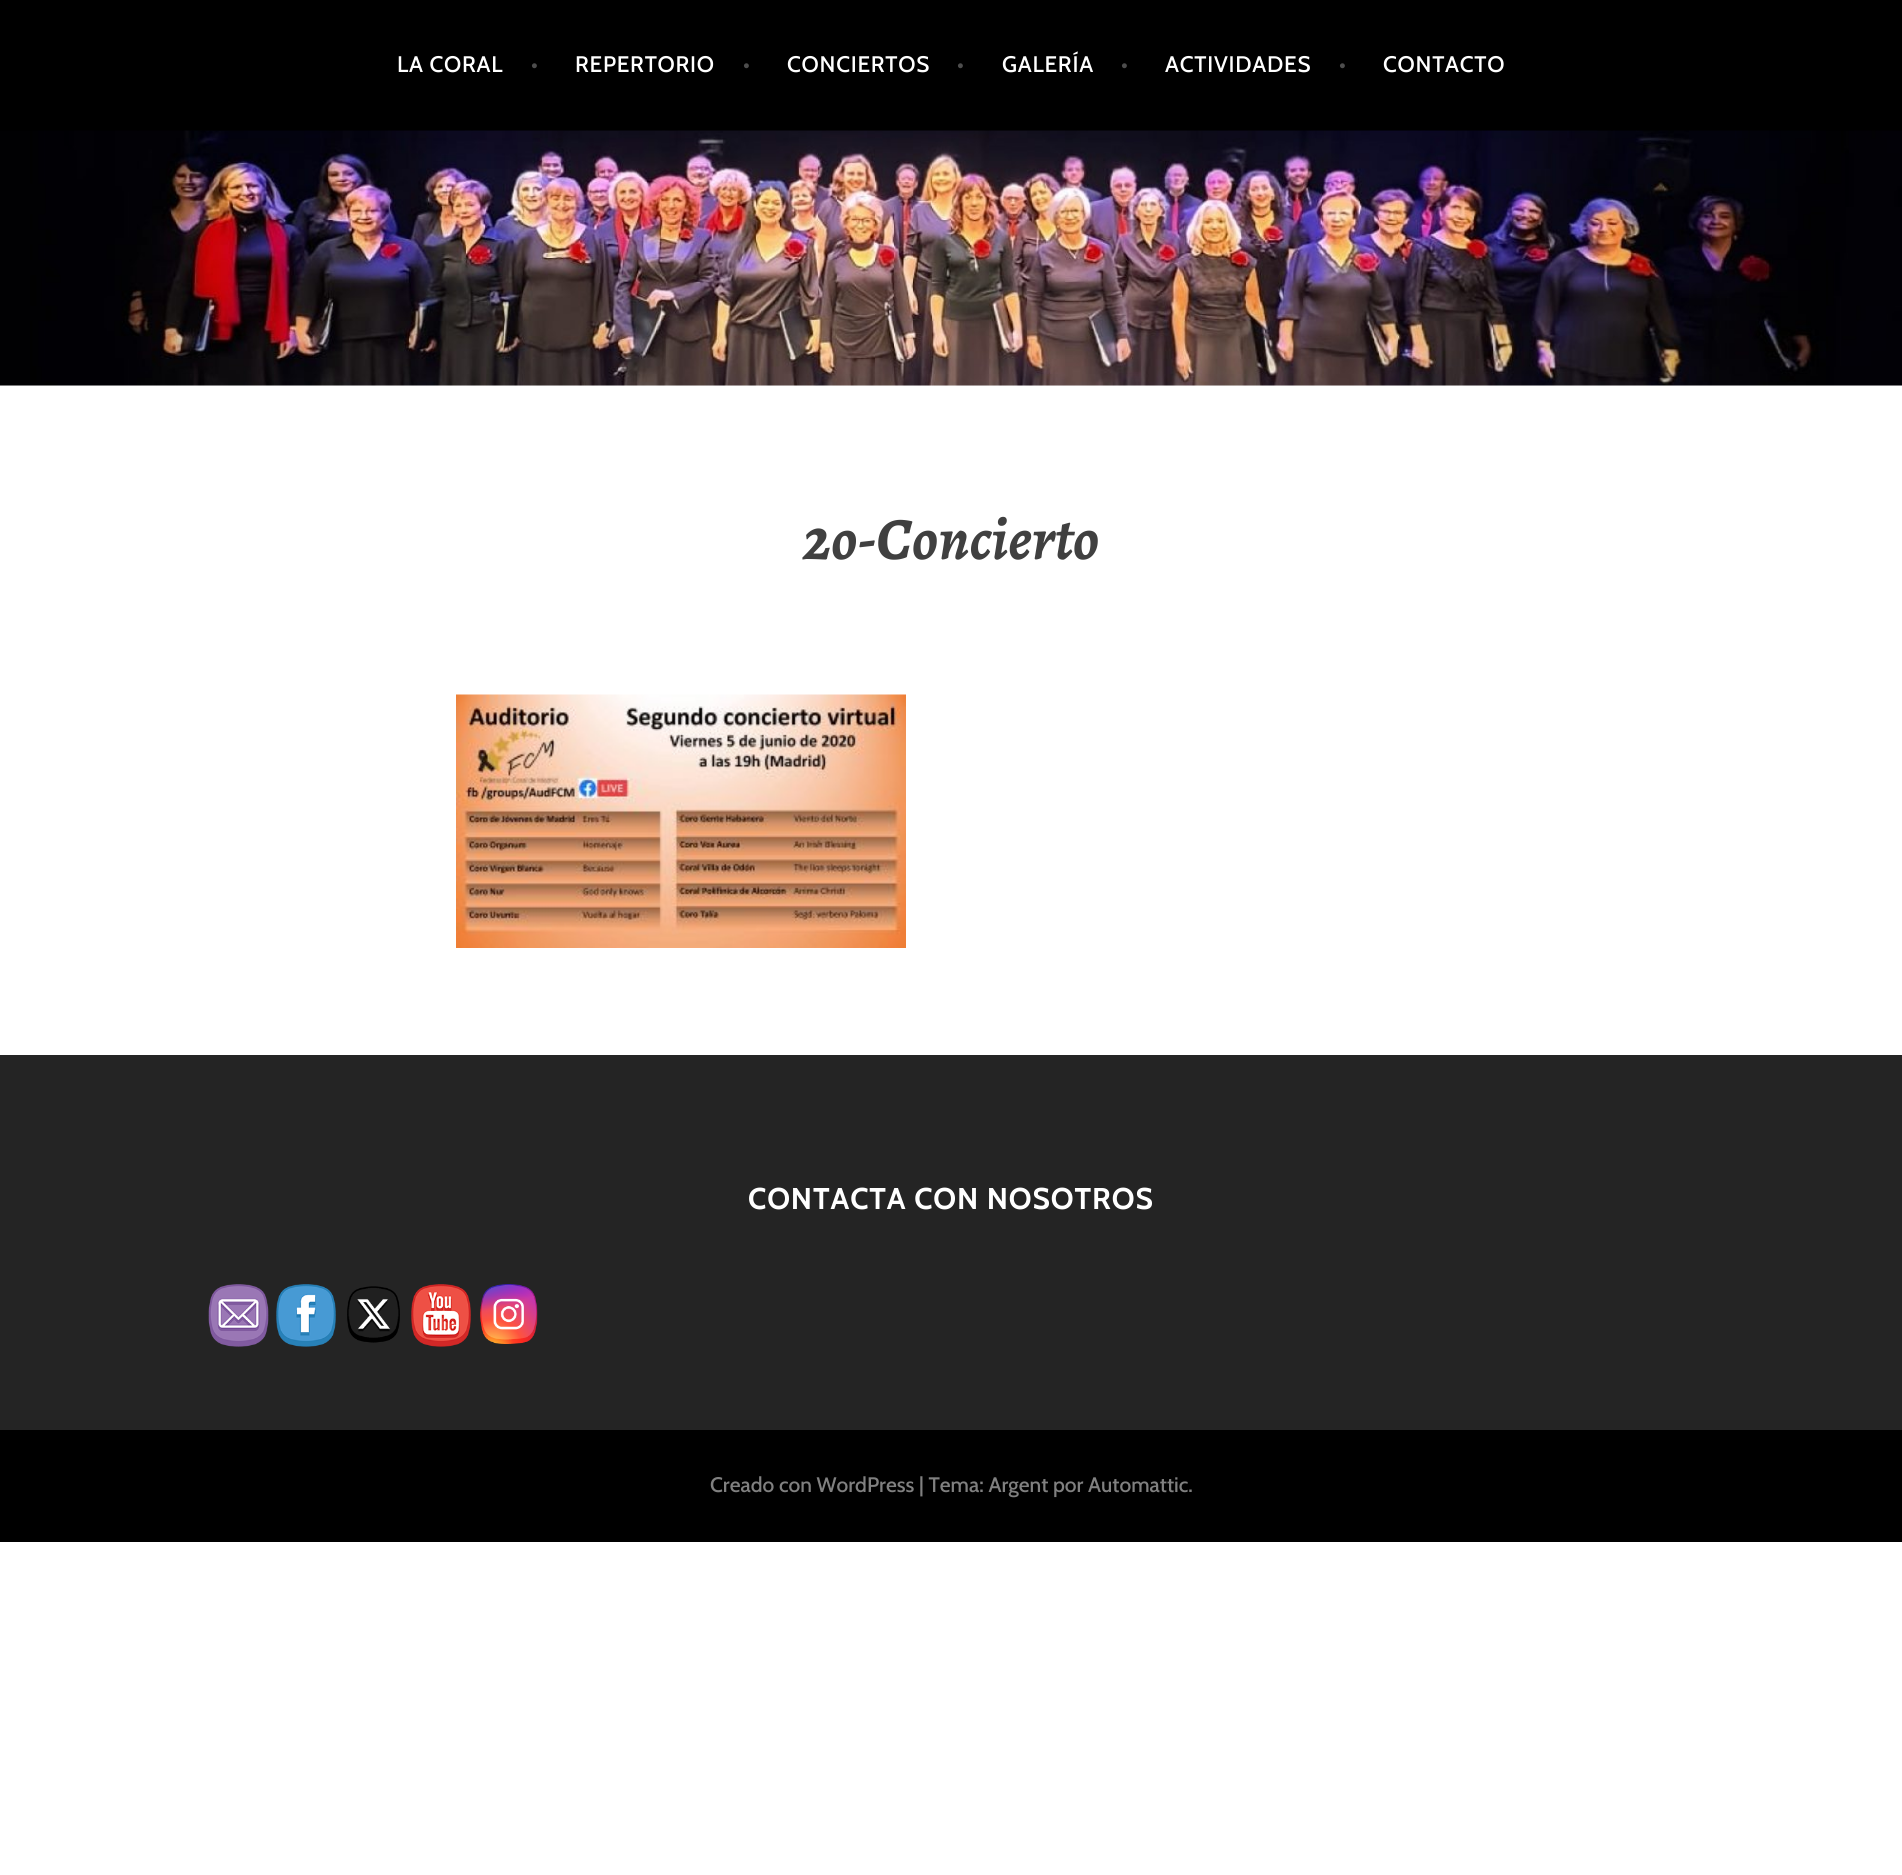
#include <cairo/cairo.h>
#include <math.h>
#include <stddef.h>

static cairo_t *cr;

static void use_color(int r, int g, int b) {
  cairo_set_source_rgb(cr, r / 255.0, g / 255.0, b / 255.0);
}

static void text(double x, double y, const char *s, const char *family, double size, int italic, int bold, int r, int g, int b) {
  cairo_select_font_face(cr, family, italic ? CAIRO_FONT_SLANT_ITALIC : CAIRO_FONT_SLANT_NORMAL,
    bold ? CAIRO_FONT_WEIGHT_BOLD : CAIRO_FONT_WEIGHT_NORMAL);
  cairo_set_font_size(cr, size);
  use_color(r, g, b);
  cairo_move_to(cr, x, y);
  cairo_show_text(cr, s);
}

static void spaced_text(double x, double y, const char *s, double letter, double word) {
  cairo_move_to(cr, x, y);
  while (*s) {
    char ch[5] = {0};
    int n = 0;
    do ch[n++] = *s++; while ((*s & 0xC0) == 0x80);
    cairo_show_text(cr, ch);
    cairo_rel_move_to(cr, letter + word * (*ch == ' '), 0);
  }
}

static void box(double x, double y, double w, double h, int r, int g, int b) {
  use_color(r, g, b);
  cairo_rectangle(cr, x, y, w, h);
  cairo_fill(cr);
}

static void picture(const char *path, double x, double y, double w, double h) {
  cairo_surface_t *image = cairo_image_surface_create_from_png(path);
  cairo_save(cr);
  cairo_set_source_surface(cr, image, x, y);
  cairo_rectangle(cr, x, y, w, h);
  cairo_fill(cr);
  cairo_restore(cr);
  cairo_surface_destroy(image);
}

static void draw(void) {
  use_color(255, 255, 255);
  cairo_paint(cr);
  box(0, 0, 1902, 131, 0, 0, 0);
  box(0, 385, 1902, 1, 247, 247, 247);
  picture("img_01.png", 0, 130, 1902, 256);
  picture("img_02.png", 456, 694, 450, 254);
  box(0, 1055, 1902, 375, 36, 36, 36);
  picture("img_03.png", 208, 1284, 61, 63);
  picture("img_04.png", 276, 1284, 60, 63);
  picture("img_05.png", 347, 1286, 53, 57);
  picture("img_06.png", 411, 1284, 60, 63);
  picture("img_07.png", 480, 1284, 58, 60);
  box(0, 1430, 1902, 112, 0, 0, 0);
  cairo_select_font_face(cr, "Cabin Medium", CAIRO_FONT_SLANT_NORMAL, CAIRO_FONT_WEIGHT_NORMAL);
  cairo_set_font_size(cr, 22.5);
  use_color(255, 255, 255);
  spaced_text(397, 72, "LA CORAL", 0.75, 0);
  use_color(77, 77, 77);
  spaced_text(531, 72, "•", 0.75, 0);
  use_color(255, 255, 255);
  spaced_text(575, 72, "REPERTORIO", 0.75, 0);
  use_color(77, 77, 77);
  spaced_text(743, 72, "•", 0.75, 0);
  use_color(255, 255, 255);
  spaced_text(787, 72, "CONCIERTOS", 0.75, 0);
  use_color(77, 77, 77);
  spaced_text(957, 72, "•", 0.75, 0);
  use_color(255, 255, 255);
  spaced_text(1002, 72, "GALERÍA", 0.75, 0);
  use_color(77, 77, 77);
  spaced_text(1121, 72, "•", 0.75, 0);
  use_color(255, 255, 255);
  spaced_text(1165, 72, "ACTIVIDADES", 0.75, 0);
  use_color(77, 77, 77);
  spaced_text(1339, 72, "•", 0.75, 0);
  use_color(255, 255, 255);
  spaced_text(1383, 72, "CONTACTO", 0.75, 0);
  text(803, 559, "2o-Concierto", "Alegreya", 60, 1, 1, 64, 64, 64);
  cairo_select_font_face(cr, "Cabin", CAIRO_FONT_SLANT_NORMAL, CAIRO_FONT_WEIGHT_BOLD);
  cairo_set_font_size(cr, 30);
  use_color(255, 255, 255);
  spaced_text(748, 1209, "CONTACTA CON NOSOTROS", 0.9, 0);
  text(710, 1492, "Creado con WordPress | Tema: Argent por Automattic.", "Cabin Medium", 21, 0, 0, 128, 128, 128);
}

int main(void) {
  cairo_surface_t *surface = cairo_image_surface_create(CAIRO_FORMAT_RGB24, 1902, 1875);
  cr = cairo_create(surface);
  cairo_font_options_t *options = cairo_font_options_create();
  cairo_font_options_set_hint_metrics(options, CAIRO_HINT_METRICS_OFF);
  cairo_font_options_set_hint_style(options, CAIRO_HINT_STYLE_NONE);
  cairo_set_font_options(cr, options);
  cairo_set_miter_limit(cr, 4);
  draw();
  cairo_surface_write_to_png(surface, "out.png");
  cairo_font_options_destroy(options);
  cairo_destroy(cr);
  cairo_surface_destroy(surface);
  return 0;
}
